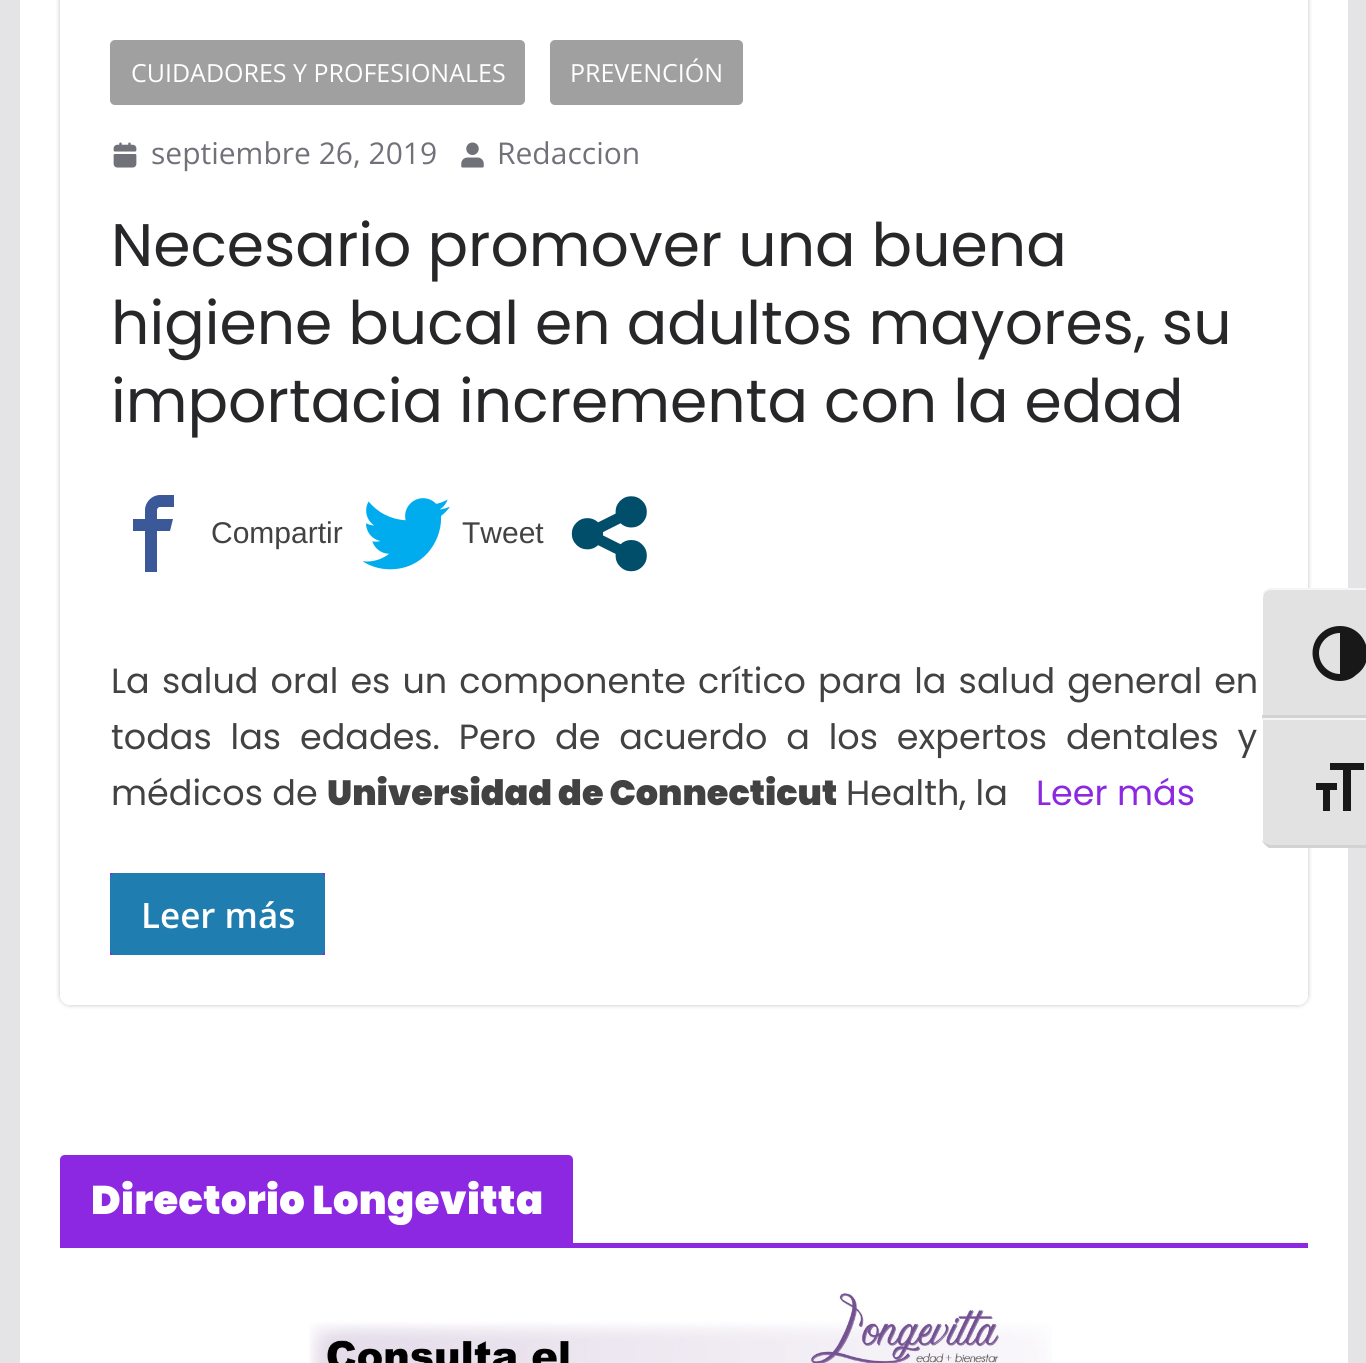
#include <cairo/cairo.h>
#include <math.h>
#include <stddef.h>

static cairo_t *cr;

static void use_color(int r, int g, int b) {
  cairo_set_source_rgb(cr, r / 255.0, g / 255.0, b / 255.0);
}

static void text(double x, double y, const char *s, const char *family, double size, int italic, int bold, int r, int g, int b) {
  cairo_select_font_face(cr, family, italic ? CAIRO_FONT_SLANT_ITALIC : CAIRO_FONT_SLANT_NORMAL,
    bold ? CAIRO_FONT_WEIGHT_BOLD : CAIRO_FONT_WEIGHT_NORMAL);
  cairo_set_font_size(cr, size);
  use_color(r, g, b);
  cairo_move_to(cr, x, y);
  cairo_show_text(cr, s);
}

static void spaced_text(double x, double y, const char *s, double letter, double word) {
  cairo_move_to(cr, x, y);
  while (*s) {
    char ch[5] = {0};
    int n = 0;
    do ch[n++] = *s++; while ((*s & 0xC0) == 0x80);
    cairo_show_text(cr, ch);
    cairo_rel_move_to(cr, letter + word * (*ch == ' '), 0);
  }
}

static void box(double x, double y, double w, double h, int r, int g, int b) {
  use_color(r, g, b);
  cairo_rectangle(cr, x, y, w, h);
  cairo_fill(cr);
}

static void round_rect(double x, double y, double w, double h, double r) {
  cairo_new_sub_path(cr);
  cairo_arc(cr, x + w - r, y + h - r, r, 0, M_PI / 2);
  cairo_arc(cr, x + r, y + h - r, r, M_PI / 2, M_PI);
  cairo_arc(cr, x + r, y + r, r, M_PI, 1.5 * M_PI);
  cairo_arc(cr, x + w - r, y + r, r, 1.5 * M_PI, 2 * M_PI);
  cairo_close_path(cr);
}

static void shadow(double x, double y, double w, double h, double r, double blur, double alpha) {
  cairo_push_group_with_content(cr, CAIRO_CONTENT_ALPHA);
  cairo_set_operator(cr, CAIRO_OPERATOR_SOURCE);
  for (int i = 15; i >= -15 && fmin(w, h) + blur * i / 3 > 0; i -= 2) {
    double e = blur * i / 6;
    cairo_set_source_rgba(cr, 0, 0, 0, alpha * erfc((i - 1) / 8.5) / 2);
    round_rect(x - e, y - e, w + 2 * e, h + 2 * e, fmax(0, fmin(r + e + blur * .6, fmin(w, h) / 2 + e)));
    cairo_fill(cr);
  }
  cairo_pattern_t *soft = cairo_pop_group(cr);
  cairo_mask(cr, soft);
  cairo_pattern_destroy(soft);
}

static void picture(const char *path, double x, double y, double w, double h) {
  cairo_surface_t *image = cairo_image_surface_create_from_png(path);
  cairo_save(cr);
  cairo_set_source_surface(cr, image, x, y);
  cairo_rectangle(cr, x, y, w, h);
  cairo_fill(cr);
  cairo_restore(cr);
  cairo_surface_destroy(image);
}

static void draw(void) {
  use_color(228, 228, 231);
  cairo_paint(cr);
  box(20, 0, 1328, 1363, 255, 255, 255);
  cairo_save(cr);
  cairo_set_fill_rule(cr, CAIRO_FILL_RULE_EVEN_ODD);
  cairo_new_path(cr);
  cairo_move_to(cr, 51, 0);
  cairo_line_to(cr, 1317, 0);
  cairo_line_to(cr, 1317, 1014);
  cairo_line_to(cr, 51, 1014);
  cairo_close_path(cr);
  cairo_move_to(cr, 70, -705);
  cairo_line_to(cr, 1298, -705);
  cairo_curve_to(cr, 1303.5, -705, 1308, -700.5, 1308, -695);
  cairo_line_to(cr, 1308, 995);
  cairo_curve_to(cr, 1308, 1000.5, 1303.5, 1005, 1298, 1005);
  cairo_line_to(cr, 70, 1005);
  cairo_curve_to(cr, 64.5, 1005, 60, 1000.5, 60, 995);
  cairo_line_to(cr, 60, -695);
  cairo_curve_to(cr, 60, -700.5, 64.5, -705, 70, -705);
  cairo_close_path(cr);
  cairo_clip(cr);
  use_color(0, 0, 0);
  shadow(60, -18, 1248, 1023, 10, 2.5, 0.24);
  cairo_restore(cr);
  use_color(160, 160, 160);
  round_rect(110, 40, 415, 65, 5);
  cairo_fill(cr);
  round_rect(550, 40, 193, 65, 5);
  cairo_fill(cr);
  picture("img_01.png", 113, 142, 24, 26);
  picture("img_02.png", 461, 142, 23, 26);
  use_color(59, 89, 152);
  cairo_new_path(cr);
  cairo_move_to(cr, 160, 495);
  cairo_curve_to(cr, 152, 495, 145, 502, 145, 510);
  cairo_line_to(cr, 145, 519);
  cairo_line_to(cr, 133, 519);
  cairo_line_to(cr, 133, 531);
  cairo_line_to(cr, 145, 531);
  cairo_line_to(cr, 145, 572);
  cairo_line_to(cr, 157, 572);
  cairo_line_to(cr, 157, 531);
  cairo_line_to(cr, 170, 531);
  cairo_line_to(cr, 173, 519);
  cairo_line_to(cr, 157, 519);
  cairo_line_to(cr, 157, 510);
  cairo_curve_to(cr, 157, 509, 158, 507, 160, 507);
  cairo_line_to(cr, 174, 507);
  cairo_line_to(cr, 174, 495);
  cairo_close_path(cr);
  cairo_fill(cr);
  picture("img_03.png", 363, 498, 87, 72);
  picture("img_04.png", 571, 496, 76, 76);
  box(110, 873, 215, 82, 140, 40, 226);
  use_color(32, 125, 175);
  round_rect(110, 873, 215, 82, 5);
  cairo_fill(cr);
  box(60, 1243, 1248, 5, 140, 40, 226);
  cairo_new_path(cr);
  cairo_move_to(cr, 65, 1155);
  cairo_line_to(cr, 568, 1155);
  cairo_curve_to(cr, 571, 1155, 573, 1157, 573, 1160);
  cairo_line_to(cr, 573, 1243);
  cairo_line_to(cr, 60, 1243);
  cairo_line_to(cr, 60, 1160);
  cairo_curve_to(cr, 60, 1157, 62, 1155, 65, 1155);
  cairo_close_path(cr);
  cairo_fill(cr);
  picture("img_05.png", 309, 1292, 743, 71);
  use_color(226, 226, 226);
  cairo_new_path(cr);
  cairo_move_to(cr, 1273, 588);
  cairo_line_to(cr, 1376, 588);
  cairo_line_to(cr, 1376, 718);
  cairo_line_to(cr, 1263, 718);
  cairo_line_to(cr, 1263, 598);
  cairo_curve_to(cr, 1263, 592.5, 1267.5, 588, 1273, 588);
  cairo_close_path(cr);
  cairo_fill(cr);
  use_color(245, 245, 245);
  cairo_new_path(cr);
  cairo_move_to(cr, 1272, 588);
  cairo_line_to(cr, 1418, 588);
  cairo_line_to(cr, 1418, 590);
  cairo_line_to(cr, 1272, 590);
  cairo_curve_to(cr, 1268, 590, 1264, 592, 1262, 595);
  cairo_curve_to(cr, 1262, 591, 1268, 588, 1272, 588);
  cairo_close_path(cr);
  cairo_fill(cr);
  box(1262, 715, 104, 3, 210, 210, 210);
  use_color(24, 24, 24);
  cairo_new_path(cr);
  cairo_move_to(cr, 1340, 626);
  cairo_curve_to(cr, 1334, 626, 1328, 628, 1324, 631);
  cairo_curve_to(cr, 1302, 647, 1314, 681, 1340, 681);
  cairo_curve_to(cr, 1346, 681, 1352, 679, 1356, 675);
  cairo_curve_to(cr, 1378, 660, 1366, 626, 1340, 626);
  cairo_close_path(cr);
  cairo_move_to(cr, 1319, 653);
  cairo_curve_to(cr, 1319, 642, 1329, 633, 1340, 633);
  cairo_line_to(cr, 1340, 674);
  cairo_curve_to(cr, 1329, 674, 1319, 665, 1319, 653);
  cairo_close_path(cr);
  cairo_fill(cr);
  use_color(226, 226, 226);
  cairo_new_path(cr);
  cairo_move_to(cr, 1263, 718);
  cairo_line_to(cr, 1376, 718);
  cairo_line_to(cr, 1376, 848);
  cairo_line_to(cr, 1273, 848);
  cairo_curve_to(cr, 1267.5, 848, 1263, 843.5, 1263, 838);
  cairo_close_path(cr);
  cairo_fill(cr);
  box(1262, 718, 104, 2, 245, 245, 245);
  use_color(210, 210, 210);
  cairo_new_path(cr);
  cairo_move_to(cr, 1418, 848);
  cairo_line_to(cr, 1269, 848);
  cairo_curve_to(cr, 1266, 846, 1264, 844, 1262, 841);
  cairo_line_to(cr, 1262, 840);
  cairo_curve_to(cr, 1264, 843, 1268, 845, 1272, 845);
  cairo_line_to(cr, 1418, 845);
  cairo_close_path(cr);
  cairo_fill(cr);
  use_color(24, 24, 24);
  cairo_new_path(cr);
  cairo_move_to(cr, 1316, 783);
  cairo_line_to(cr, 1337, 783);
  cairo_line_to(cr, 1337, 790);
  cairo_line_to(cr, 1330, 790);
  cairo_line_to(cr, 1330, 811);
  cairo_line_to(cr, 1323, 811);
  cairo_line_to(cr, 1323, 790);
  cairo_line_to(cr, 1316, 790);
  cairo_close_path(cr);
  cairo_move_to(cr, 1364, 770);
  cairo_line_to(cr, 1351, 770);
  cairo_line_to(cr, 1351, 811);
  cairo_line_to(cr, 1343, 811);
  cairo_line_to(cr, 1343, 770);
  cairo_line_to(cr, 1330, 770);
  cairo_line_to(cr, 1330, 763);
  cairo_line_to(cr, 1364, 763);
  cairo_close_path(cr);
  cairo_fill(cr);
  text(131, 82, "CUIDADORES Y PROFESIONALES", "Open Sans", 25, 0, 0, 255, 255, 255);
  text(570, 82, "PREVENCIÓN", "Open Sans", 25, 0, 0, 255, 255, 255);
  text(151, 164, "septiembre 26, 2019", "Open Sans", 30, 0, 0, 113, 113, 122);
  text(497, 164, "Redaccion", "Open Sans", 30, 0, 0, 113, 113, 122);
  text(111, 266, "Necesario promover una buena", "Poppins", 60, 0, 0, 39, 39, 42);
  text(111, 344, "higiene bucal en adultos mayores, su", "Poppins", 60, 0, 0, 39, 39, 42);
  text(111, 422, "importacia incrementa con la edad", "Poppins", 60, 0, 0, 39, 39, 42);
  text(211, 543, "Compartir", "Liberation Sans", 30, 0, 0, 66, 66, 66);
  text(462, 543, "Tweet", "Liberation Sans", 30, 0, 0, 66, 66, 66);
  cairo_select_font_face(cr, "Poppins", CAIRO_FONT_SLANT_NORMAL, CAIRO_FONT_WEIGHT_NORMAL);
  cairo_set_font_size(cr, 35);
  spaced_text(111, 693, "La salud oral es un componente crítico para la salud general en", 0, 2.75);
  spaced_text(111, 749, "todas las edades. Pero de acuerdo a los expertos dentales y", 0, 9.5);
  text(111, 805, "médicos de", "Poppins", 35, 0, 0, 66, 66, 66);
  text(327, 805, "Universidad de Connecticut", "Poppins Black", 35, 0, 0, 66, 66, 66);
  text(846, 805, "Health, la", "Poppins", 35, 0, 0, 66, 66, 66);
  text(1036, 805, "Leer más", "Poppins", 35, 0, 0, 140, 40, 226);
  text(141, 928, "Leer más", "Open Sans SemiBold", 35, 0, 0, 255, 255, 255);
  cairo_select_font_face(cr, "Poppins Black", CAIRO_FONT_SLANT_NORMAL, CAIRO_FONT_WEIGHT_NORMAL);
  cairo_set_font_size(cr, 40);
  spaced_text(91, 1214, "Directorio Longevitta", 0.4, 0);
}

int main(void) {
  cairo_surface_t *surface = cairo_image_surface_create(CAIRO_FORMAT_RGB24, 1366, 1363);
  cr = cairo_create(surface);
  cairo_font_options_t *options = cairo_font_options_create();
  cairo_font_options_set_hint_metrics(options, CAIRO_HINT_METRICS_OFF);
  cairo_font_options_set_hint_style(options, CAIRO_HINT_STYLE_NONE);
  cairo_set_font_options(cr, options);
  cairo_set_miter_limit(cr, 4);
  draw();
  cairo_surface_write_to_png(surface, "out.png");
  cairo_font_options_destroy(options);
  cairo_destroy(cr);
  cairo_surface_destroy(surface);
  return 0;
}
